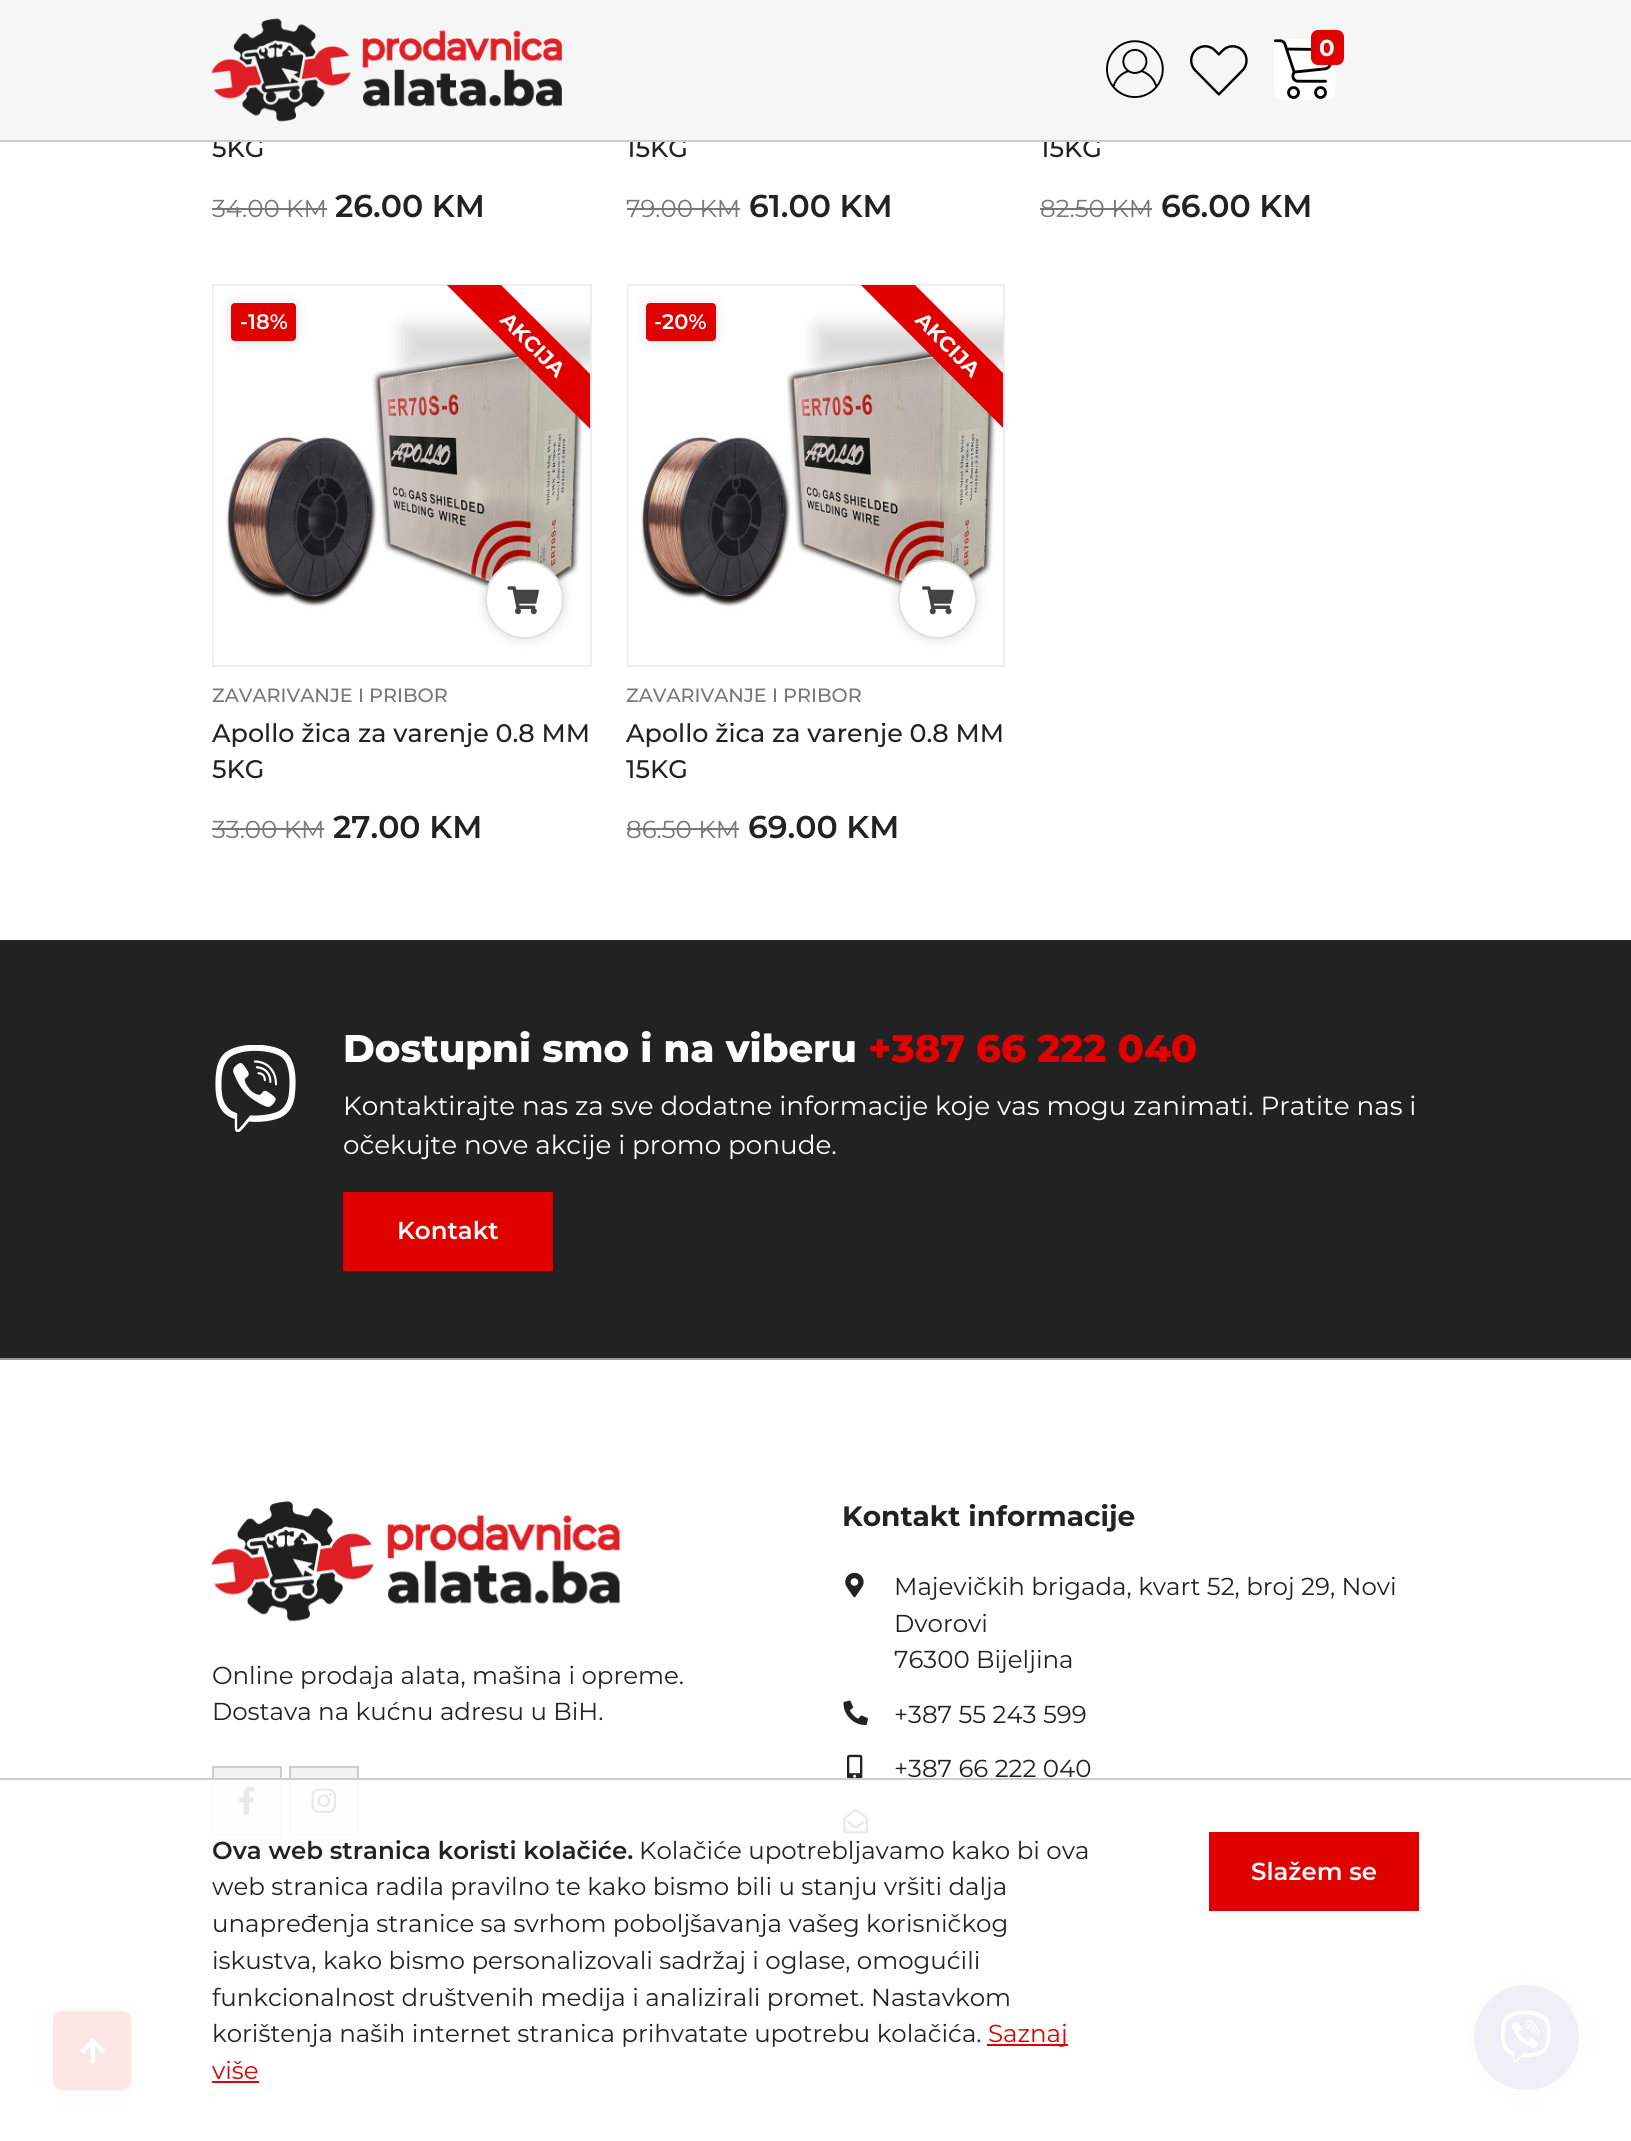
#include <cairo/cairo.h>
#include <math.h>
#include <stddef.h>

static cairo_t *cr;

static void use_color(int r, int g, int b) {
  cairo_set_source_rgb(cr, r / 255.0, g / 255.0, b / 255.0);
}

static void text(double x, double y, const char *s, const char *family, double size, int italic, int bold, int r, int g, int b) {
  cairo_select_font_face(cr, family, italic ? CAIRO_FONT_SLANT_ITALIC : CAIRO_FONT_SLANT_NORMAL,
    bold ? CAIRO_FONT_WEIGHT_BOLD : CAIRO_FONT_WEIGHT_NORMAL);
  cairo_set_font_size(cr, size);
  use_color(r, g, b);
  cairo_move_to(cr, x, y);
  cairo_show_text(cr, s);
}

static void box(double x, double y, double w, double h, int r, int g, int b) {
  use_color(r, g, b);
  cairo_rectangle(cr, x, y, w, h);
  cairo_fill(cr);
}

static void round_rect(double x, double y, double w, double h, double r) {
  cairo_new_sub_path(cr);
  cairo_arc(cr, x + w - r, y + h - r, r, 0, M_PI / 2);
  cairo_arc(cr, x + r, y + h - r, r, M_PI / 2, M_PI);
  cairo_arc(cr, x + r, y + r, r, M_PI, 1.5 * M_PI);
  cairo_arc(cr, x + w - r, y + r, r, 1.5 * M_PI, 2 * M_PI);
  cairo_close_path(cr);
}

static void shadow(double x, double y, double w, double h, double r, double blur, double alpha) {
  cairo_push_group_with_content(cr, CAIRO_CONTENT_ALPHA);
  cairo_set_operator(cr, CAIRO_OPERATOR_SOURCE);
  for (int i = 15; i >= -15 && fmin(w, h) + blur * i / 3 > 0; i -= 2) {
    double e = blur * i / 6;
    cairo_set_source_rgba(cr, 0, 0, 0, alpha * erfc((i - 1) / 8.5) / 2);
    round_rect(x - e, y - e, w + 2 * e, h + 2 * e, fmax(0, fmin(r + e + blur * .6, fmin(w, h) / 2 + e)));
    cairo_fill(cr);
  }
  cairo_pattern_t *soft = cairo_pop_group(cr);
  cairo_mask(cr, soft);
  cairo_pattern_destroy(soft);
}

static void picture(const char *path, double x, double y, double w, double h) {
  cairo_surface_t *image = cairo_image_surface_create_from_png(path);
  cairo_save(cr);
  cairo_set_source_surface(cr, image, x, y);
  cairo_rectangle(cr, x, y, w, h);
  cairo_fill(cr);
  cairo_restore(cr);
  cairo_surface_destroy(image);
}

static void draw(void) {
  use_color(255, 255, 255);
  cairo_paint(cr);
  box(212, 208, 115, 2, 119, 119, 119);
  box(627, 208, 113, 2, 119, 119, 119);
  box(1040, 208, 112, 2, 119, 119, 119);
  cairo_rectangle(cr, 213, 285, 378, 381);
  use_color(238, 238, 238);
  cairo_stroke(cr);
  picture("img_05.png", 213, 288, 372, 375);
  use_color(0, 0, 0);
  shadow(231, 303, 65, 38, 4, 6, 0.13);
  use_color(225, 0, 0);
  round_rect(231, 303, 65, 38, 4);
  cairo_fill(cr);
  cairo_rectangle(cr, 628, 285, 376, 381);
  use_color(238, 238, 238);
  cairo_stroke(cr);
  picture("img_07.png", 628, 287, 370, 377);
  cairo_save(cr);
  cairo_rectangle(cr, 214, 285, 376, 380);
  cairo_clip(cr);
  use_color(0, 0, 0);
  shadow(403, 326, 262, 38, 0, 9, 0.15);
  cairo_restore(cr);
  cairo_save(cr);
  cairo_rectangle(cr, 214, 285, 376, 380);
  cairo_clip(cr);
  use_color(225, 0, 0);
  cairo_new_path(cr);
  cairo_move_to(cr, 454, 238);
  cairo_line_to(cr, 640, 424);
  cairo_line_to(cr, 612, 451);
  cairo_line_to(cr, 427, 265);
  cairo_close_path(cr);
  cairo_fill(cr);
  cairo_restore(cr);
  use_color(0, 0, 0);
  shadow(485, 560, 79, 79, 39.5, 6, 0.13);
  use_color(255, 255, 255);
  cairo_arc(cr, 524.5, 599.5, 38.5, 0, 2 * M_PI);
  cairo_fill_preserve(cr);
  use_color(225, 225, 225);
  cairo_stroke(cr);
  picture("img_06.png", 507, 586, 32, 29);
  box(212, 828, 112, 2, 119, 119, 119);
  use_color(0, 0, 0);
  shadow(646, 303, 70, 38, 4, 6, 0.13);
  use_color(225, 0, 0);
  round_rect(646, 303, 70, 38, 4);
  cairo_fill(cr);
  cairo_save(cr);
  cairo_rectangle(cr, 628, 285, 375, 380);
  cairo_clip(cr);
  use_color(0, 0, 0);
  shadow(816, 326, 262, 38, 0, 9, 0.15);
  cairo_restore(cr);
  cairo_save(cr);
  cairo_rectangle(cr, 628, 285, 375, 380);
  cairo_clip(cr);
  cairo_new_path(cr);
  cairo_move_to(cr, 868, 238);
  cairo_line_to(cr, 1054, 424);
  cairo_line_to(cr, 1026, 451);
  cairo_line_to(cr, 841, 265);
  cairo_close_path(cr);
  cairo_fill(cr);
  cairo_restore(cr);
  use_color(0, 0, 0);
  shadow(898, 560, 79, 79, 39.5, 6, 0.13);
  use_color(255, 255, 255);
  cairo_arc(cr, 937.5, 599.5, 38.5, 0, 2 * M_PI);
  cairo_fill_preserve(cr);
  use_color(225, 225, 225);
  cairo_stroke(cr);
  picture("img_08.png", 922, 586, 32, 29);
  box(627, 828, 112, 2, 119, 119, 119);
  box(0, 940, 1631, 418, 34, 34, 34);
  picture("img_09.png", 215, 1045, 81, 87);
  box(343, 1192, 210, 79, 225, 0, 0);
  box(0, 1358, 1631, 2, 153, 153, 153);
  picture("img_10.png", 211, 1501, 409, 121);
  use_color(242, 242, 242);
  cairo_rectangle(cr, 213, 1767, 68, 68);
  cairo_fill_preserve(cr);
  use_color(204, 204, 204);
  cairo_stroke(cr);
  picture("img_11.png", 239, 1786, 16, 29);
  use_color(242, 242, 242);
  cairo_rectangle(cr, 290, 1767, 68, 68);
  cairo_fill_preserve(cr);
  use_color(204, 204, 204);
  cairo_stroke(cr);
  picture("img_12.png", 311, 1788, 26, 25);
  picture("img_13.png", 845, 1572, 19, 26);
  picture("img_14.png", 843, 1700, 25, 26);
  picture("img_15.png", 847, 1754, 16, 24);
  picture("img_16.png", 843, 1809, 25, 25);
  use_color(0, 0, 0);
  shadow(53, 2011, 78, 79, 9, 9, 0.25);
  use_color(225, 0, 0);
  round_rect(53, 2011, 78, 79, 9);
  cairo_fill(cr);
  picture("img_17.png", 80, 2038, 25, 26);
  use_color(0, 0, 0);
  shadow(1474, 1985, 105, 105, 52.5, 9, 0.2);
  use_color(102, 92, 172);
  cairo_arc(cr, 1526.5, 2037.5, 52.5, 0, 2 * M_PI);
  cairo_fill(cr);
  picture("img_18.png", 1500, 2011, 51, 52);
  cairo_set_source_rgba(cr, 1, 1, 1, 0.9);
  cairo_rectangle(cr, 38, 1780, 1555, 325);
  cairo_fill(cr);
  box(0, 1778, 1631, 2, 204, 204, 204);
  box(987, 2044, 81, 2, 225, 0, 0);
  box(212, 2081, 47, 2, 225, 0, 0);
  box(1209, 1832, 210, 79, 225, 0, 0);
  text(212, 157, "5KG", "Montserrat Medium", 25.4, 0, 0, 34, 34, 34);
  text(212, 217, "34.00 KM", "Montserrat", 24.5, 0, 0, 119, 119, 119);
  text(335, 217, "26.00 KM", "Montserrat SemiBold", 31.5, 0, 0, 34, 34, 34);
  text(626, 157, "15KG", "Montserrat Medium", 25.4, 0, 0, 34, 34, 34);
  text(626, 217, "79.00 KM", "Montserrat", 24.5, 0, 0, 119, 119, 119);
  text(749, 217, "61.00 KM", "Montserrat SemiBold", 31.5, 0, 0, 34, 34, 34);
  text(1040, 157, "15KG", "Montserrat Medium", 25.4, 0, 0, 34, 34, 34);
  box(0, 0, 1631, 140, 246, 246, 246);
  use_color(255, 255, 255);
  round_rect(1274, 39, 61, 61, 9);
  cairo_fill(cr);
  picture("img_04.png", 1274, 39, 58, 60);
  use_color(225, 0, 0);
  round_rect(1311, 30, 33, 35, 7);
  cairo_fill(cr);
  text(1319, 56, "0", "Montserrat", 23, 0, 1, 255, 255, 255);
  picture("img_03.png", 1190, 45, 58, 51);
  picture("img_02.png", 1106, 40, 58, 58);
  picture("img_01.png", 211, 18, 351, 104);
  box(0, 140, 1631, 2, 204, 204, 204);
  text(1040, 217, "82.50 KM", "Montserrat", 24.5, 0, 0, 119, 119, 119);
  text(1161, 217, "66.00 KM", "Montserrat SemiBold", 31.5, 0, 0, 34, 34, 34);
  text(240, 329, "-18%", "Montserrat SemiBold", 21, 0, 0, 255, 255, 255);
  cairo_save(cr);
  cairo_translate(cr, 499, 321);
  cairo_rotate(cr, 45 * M_PI / 180);
  text(0, 0, "AKCIJA", "Montserrat", 21, 0, 1, 255, 255, 255);
  cairo_restore(cr);
  text(212, 702, "ZAVARIVANJE I PRIBOR", "Montserrat Medium", 19.25, 0, 0, 119, 119, 119);
  text(212, 742, "Apollo žica za varenje 0.8 MM", "Montserrat Medium", 25.4, 0, 0, 34, 34, 34);
  text(212, 778, "5KG", "Montserrat Medium", 25.4, 0, 0, 34, 34, 34);
  text(212, 838, "33.00 KM", "Montserrat", 24.5, 0, 0, 119, 119, 119);
  text(333, 838, "27.00 KM", "Montserrat SemiBold", 31.5, 0, 0, 34, 34, 34);
  text(654, 329, "-20%", "Montserrat SemiBold", 21, 0, 0, 255, 255, 255);
  cairo_save(cr);
  cairo_translate(cr, 914, 321);
  cairo_rotate(cr, 45 * M_PI / 180);
  text(0, 0, "AKCIJA", "Montserrat", 21, 0, 1, 255, 255, 255);
  cairo_restore(cr);
  text(626, 702, "ZAVARIVANJE I PRIBOR", "Montserrat Medium", 19.25, 0, 0, 119, 119, 119);
  text(626, 742, "Apollo žica za varenje 0.8 MM", "Montserrat Medium", 25.4, 0, 0, 34, 34, 34);
  text(626, 778, "15KG", "Montserrat Medium", 25.4, 0, 0, 34, 34, 34);
  text(626, 838, "86.50 KM", "Montserrat", 24.5, 0, 0, 119, 119, 119);
  text(748, 838, "69.00 KM", "Montserrat SemiBold", 31.5, 0, 0, 34, 34, 34);
  text(343, 1062, "Dostupni smo i na viberu", "Montserrat ExtraBold", 38.5, 0, 0, 255, 255, 255);
  text(868, 1062, "+387 66 222 040", "Montserrat ExtraBold", 38.5, 0, 0, 225, 0, 0);
  text(343, 1115, "Kontaktirajte nas za sve dodatne informacije koje vas mogu zanimati. Pratite nas i", "Montserrat", 26.25, 0, 0, 255, 255, 255);
  text(343, 1154, "očekujte nove akcije i promo ponude.", "Montserrat", 26.25, 0, 0, 255, 255, 255);
  text(397, 1239, "Kontakt", "Montserrat SemiBold", 24.5, 0, 0, 255, 255, 255);
  text(212, 1684, "Online prodaja alata, mašina i opreme.", "Montserrat", 24.5, 0, 0, 34, 34, 34);
  text(212, 1720, "Dostava na kućnu adresu u BiH.", "Montserrat", 24.5, 0, 0, 34, 34, 34);
  text(842, 1526, "Kontakt informacije", "Montserrat", 28, 0, 1, 34, 34, 34);
  text(894, 1595, "Majevičkih brigada, kvart 52, broj 29, Novi", "Montserrat", 24.5, 0, 0, 34, 34, 34);
  text(894, 1632, "Dvorovi", "Montserrat", 24.5, 0, 0, 34, 34, 34);
  text(894, 1668, "76300 Bijeljina", "Montserrat", 24.5, 0, 0, 34, 34, 34);
  text(894, 1723, "+387 55 243 599", "Montserrat", 24.5, 0, 0, 34, 34, 34);
  text(894, 1777, "+387 66 222 040", "Montserrat", 24.5, 0, 0, 34, 34, 34);
  text(212, 1859, "Ova web stranica koristi kolačiće.", "Montserrat SemiBold", 24.5, 0, 0, 34, 34, 34);
  text(639, 1859, "Kolačiće upotrebljavamo kako bi ova", "Montserrat", 24.5, 0, 0, 34, 34, 34);
  text(212, 1895, "web stranica radila pravilno te kako bismo bili u stanju vršiti dalja", "Montserrat", 24.5, 0, 0, 34, 34, 34);
  text(212, 1932, "unapređenja stranice sa svrhom poboljšavanja vašeg korisničkog", "Montserrat", 24.5, 0, 0, 34, 34, 34);
  text(212, 1969, "iskustva, kako bismo personalizovali sadržaj i oglase, omogućili", "Montserrat", 24.5, 0, 0, 34, 34, 34);
  text(212, 2006, "funkcionalnost društvenih medija i analizirali promet. Nastavkom", "Montserrat", 24.5, 0, 0, 34, 34, 34);
  text(212, 2042, "korištenja naših internet stranica prihvatate upotrebu kolačića.", "Montserrat", 24.5, 0, 0, 34, 34, 34);
  text(988, 2042, "Saznaj", "Montserrat", 24.5, 0, 0, 225, 0, 0);
  text(212, 2079, "više", "Montserrat", 24.5, 0, 0, 225, 0, 0);
  text(1251, 1880, "Slažem se", "Montserrat SemiBold", 24.5, 0, 0, 255, 255, 255);
}

int main(void) {
  cairo_surface_t *surface = cairo_image_surface_create(CAIRO_FORMAT_RGB24, 1631, 2141);
  cr = cairo_create(surface);
  cairo_font_options_t *options = cairo_font_options_create();
  cairo_font_options_set_hint_metrics(options, CAIRO_HINT_METRICS_OFF);
  cairo_font_options_set_hint_style(options, CAIRO_HINT_STYLE_NONE);
  cairo_set_font_options(cr, options);
  cairo_set_miter_limit(cr, 4);
  draw();
  cairo_surface_write_to_png(surface, "out.png");
  cairo_font_options_destroy(options);
  cairo_destroy(cr);
  cairo_surface_destroy(surface);
  return 0;
}
